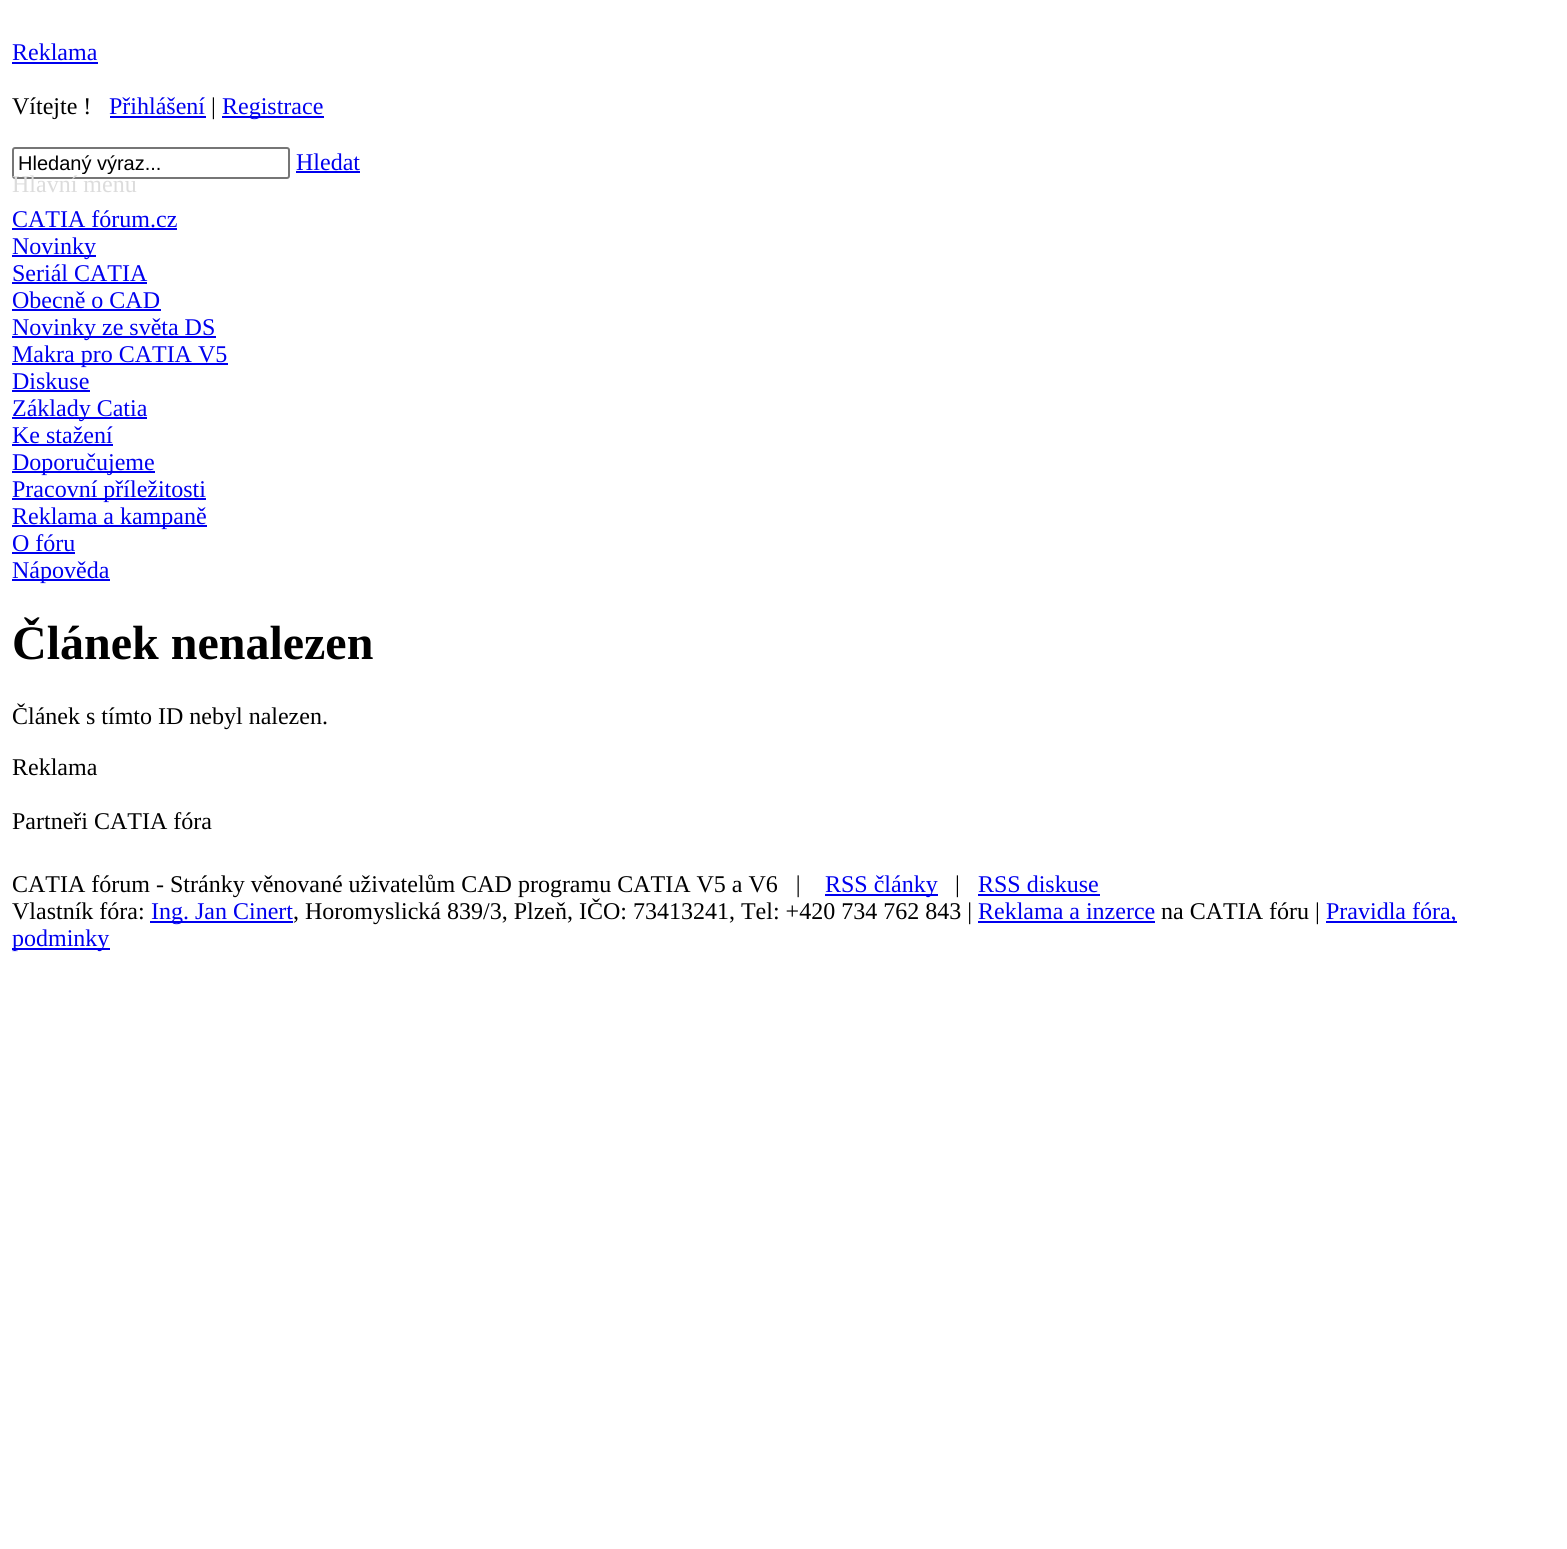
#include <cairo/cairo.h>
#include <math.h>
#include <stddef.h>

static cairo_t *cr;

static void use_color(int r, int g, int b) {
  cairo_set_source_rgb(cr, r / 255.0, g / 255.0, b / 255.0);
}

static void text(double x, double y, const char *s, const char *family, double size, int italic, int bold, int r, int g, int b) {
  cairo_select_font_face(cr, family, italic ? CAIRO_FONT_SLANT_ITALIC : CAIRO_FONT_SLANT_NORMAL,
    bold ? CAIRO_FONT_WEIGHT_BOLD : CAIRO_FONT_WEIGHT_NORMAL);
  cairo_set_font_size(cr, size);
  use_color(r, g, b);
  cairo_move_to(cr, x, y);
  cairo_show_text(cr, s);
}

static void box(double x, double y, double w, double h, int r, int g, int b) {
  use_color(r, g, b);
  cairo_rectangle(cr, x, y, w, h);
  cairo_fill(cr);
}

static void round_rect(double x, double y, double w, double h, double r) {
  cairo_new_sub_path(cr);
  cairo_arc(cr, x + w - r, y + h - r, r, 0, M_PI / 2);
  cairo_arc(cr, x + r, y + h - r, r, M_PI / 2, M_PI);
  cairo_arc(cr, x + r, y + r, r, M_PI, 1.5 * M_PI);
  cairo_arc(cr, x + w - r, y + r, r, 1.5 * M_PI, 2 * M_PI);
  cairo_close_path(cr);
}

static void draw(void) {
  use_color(255, 255, 255);
  cairo_paint(cr);
  box(12, 62, 86, 2, 0, 0, 238);
  box(110, 116, 96, 2, 0, 0, 238);
  box(222, 116, 102, 2, 0, 0, 238);
  round_rect(13, 148, 276, 30, 2);
  use_color(118, 118, 118);
  cairo_stroke(cr);
  box(296, 171, 64, 2, 0, 0, 238);
  box(12, 228, 165, 2, 0, 0, 238);
  box(12, 255, 84, 2, 0, 0, 238);
  box(12, 282, 135, 2, 0, 0, 238);
  box(12, 309, 149, 2, 0, 0, 238);
  box(12, 336, 204, 2, 0, 0, 238);
  box(12, 363, 216, 2, 0, 0, 238);
  box(12, 390, 78, 2, 0, 0, 238);
  box(12, 417, 135, 2, 0, 0, 238);
  box(12, 444, 101, 2, 0, 0, 238);
  box(12, 471, 143, 2, 0, 0, 238);
  box(12, 498, 194, 2, 0, 0, 238);
  box(12, 525, 195, 2, 0, 0, 238);
  box(12, 552, 63, 2, 0, 0, 238);
  box(12, 579, 98, 2, 0, 0, 238);
  box(825, 894, 113, 2, 0, 0, 238);
  box(978, 894, 122, 2, 0, 0, 238);
  box(150, 921, 143, 2, 0, 0, 238);
  box(978, 921, 177, 2, 0, 0, 238);
  box(1326, 921, 131, 2, 0, 0, 238);
  box(12, 948, 98, 2, 0, 0, 238);
  text(12, 60, "Reklama", "Liberation Serif", 24, 0, 0, 0, 0, 238);
  text(12, 114, "Vítejte !", "Liberation Serif", 24, 0, 0, 0, 0, 0);
  text(109, 114, "Přihlášení", "Liberation Serif", 24, 0, 0, 0, 0, 238);
  text(211, 114, "|", "Liberation Serif", 24, 0, 0, 0, 0, 0);
  text(222, 114, "Registrace", "Liberation Serif", 24, 0, 0, 0, 0, 238);
  cairo_save(cr);
  cairo_rectangle(cr, 18, 152, 266, 22);
  cairo_clip(cr);
  text(18, 170, "Hledaný výraz...", "Liberation Sans", 20, 0, 0, 0, 0, 0);
  cairo_restore(cr);
  text(296, 170, "Hledat", "Liberation Serif", 24, 0, 0, 0, 0, 238);
  text(12, 192, "Hlavní menu", "Liberation Serif", 24, 0, 0, 220, 220, 220);
  text(12, 227, "CATIA fórum.cz", "Liberation Serif", 24, 0, 0, 0, 0, 238);
  text(12, 254, "Novinky", "Liberation Serif", 24, 0, 0, 0, 0, 238);
  text(12, 281, "Seriál CATIA", "Liberation Serif", 24, 0, 0, 0, 0, 238);
  text(12, 308, "Obecně o CAD", "Liberation Serif", 24, 0, 0, 0, 0, 238);
  text(12, 335, "Novinky ze světa DS", "Liberation Serif", 24, 0, 0, 0, 0, 238);
  text(12, 362, "Makra pro CATIA V5", "Liberation Serif", 24, 0, 0, 0, 0, 238);
  text(12, 389, "Diskuse", "Liberation Serif", 24, 0, 0, 0, 0, 238);
  text(12, 416, "Základy Catia", "Liberation Serif", 24, 0, 0, 0, 0, 238);
  text(12, 443, "Ke stažení", "Liberation Serif", 24, 0, 0, 0, 0, 238);
  text(12, 470, "Doporučujeme", "Liberation Serif", 24, 0, 0, 0, 0, 238);
  text(12, 497, "Pracovní příležitosti", "Liberation Serif", 24, 0, 0, 0, 0, 238);
  text(12, 524, "Reklama a kampaně", "Liberation Serif", 24, 0, 0, 0, 0, 238);
  text(12, 551, "O fóru", "Liberation Serif", 24, 0, 0, 0, 0, 238);
  text(12, 578, "Nápověda", "Liberation Serif", 24, 0, 0, 0, 0, 238);
  text(12, 659, "Článek nenalezen", "Liberation Serif", 48, 0, 1, 0, 0, 0);
  text(12, 724, "Článek s tímto ID nebyl nalezen.", "Liberation Serif", 24, 0, 0, 0, 0, 0);
  text(12, 775, "Reklama", "Liberation Serif", 24, 0, 0, 0, 0, 0);
  text(12, 829, "Partneři CATIA fóra", "Liberation Serif", 24, 0, 0, 0, 0, 0);
  text(12, 892, "CATIA fórum - Stránky věnované uživatelům CAD programu CATIA V5 a V6   |", "Liberation Serif", 24, 0, 0, 0, 0, 0);
  text(825, 892, "RSS články", "Liberation Serif", 24, 0, 0, 0, 0, 238);
  text(955, 892, "|", "Liberation Serif", 24, 0, 0, 0, 0, 0);
  text(978, 892, "RSS diskuse", "Liberation Serif", 24, 0, 0, 0, 0, 238);
  text(12, 919, "Vlastník fóra:", "Liberation Serif", 24, 0, 0, 0, 0, 0);
  text(151, 919, "Ing. Jan Cinert", "Liberation Serif", 24, 0, 0, 0, 0, 238);
  text(293, 919, ", Horomyslická 839/3, Plzeň, IČO: 73413241, Tel: +420 734 762 843 |", "Liberation Serif", 24, 0, 0, 0, 0, 0);
  text(978, 919, "Reklama a inzerce", "Liberation Serif", 24, 0, 0, 0, 0, 238);
  text(1161, 919, "na CATIA fóru |", "Liberation Serif", 24, 0, 0, 0, 0, 0);
  text(1326, 919, "Pravidla fóra,", "Liberation Serif", 24, 0, 0, 0, 0, 238);
  text(12, 946, "podminky", "Liberation Serif", 24, 0, 0, 0, 0, 238);
}

int main(void) {
  cairo_surface_t *surface = cairo_image_surface_create(CAIRO_FORMAT_RGB24, 1567, 1549);
  cr = cairo_create(surface);
  cairo_font_options_t *options = cairo_font_options_create();
  cairo_font_options_set_hint_metrics(options, CAIRO_HINT_METRICS_OFF);
  cairo_font_options_set_hint_style(options, CAIRO_HINT_STYLE_NONE);
  cairo_set_font_options(cr, options);
  cairo_set_miter_limit(cr, 4);
  draw();
  cairo_surface_write_to_png(surface, "out.png");
  cairo_font_options_destroy(options);
  cairo_destroy(cr);
  cairo_surface_destroy(surface);
  return 0;
}
